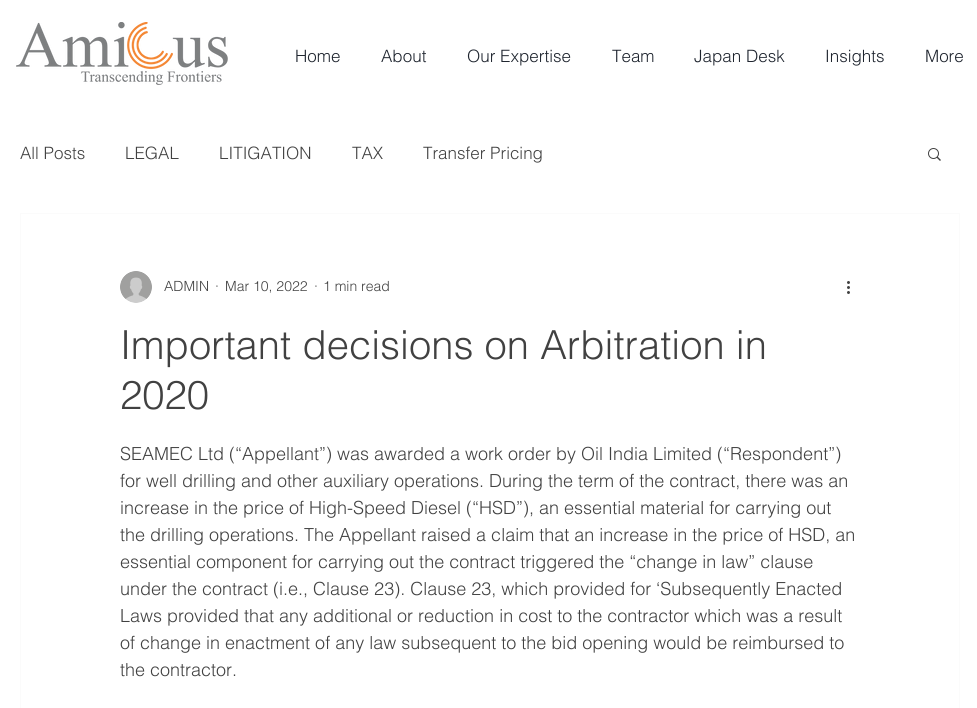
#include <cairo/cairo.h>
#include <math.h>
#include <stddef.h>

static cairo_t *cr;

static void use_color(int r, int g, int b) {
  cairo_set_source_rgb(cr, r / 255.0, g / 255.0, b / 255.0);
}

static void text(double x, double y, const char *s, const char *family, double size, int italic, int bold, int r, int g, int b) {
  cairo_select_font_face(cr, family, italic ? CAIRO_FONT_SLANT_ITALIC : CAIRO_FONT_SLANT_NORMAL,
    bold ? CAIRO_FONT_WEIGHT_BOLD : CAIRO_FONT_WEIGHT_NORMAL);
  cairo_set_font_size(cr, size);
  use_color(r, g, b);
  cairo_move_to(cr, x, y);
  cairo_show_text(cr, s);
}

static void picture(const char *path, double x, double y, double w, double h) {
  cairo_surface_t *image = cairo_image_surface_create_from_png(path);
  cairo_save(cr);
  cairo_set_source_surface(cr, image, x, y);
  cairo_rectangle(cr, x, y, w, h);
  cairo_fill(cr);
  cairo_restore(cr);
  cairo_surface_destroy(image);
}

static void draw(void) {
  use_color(255, 255, 255);
  cairo_paint(cr);
  picture("img_01.png", 16, 22, 212, 63);
  picture("img_02.png", 928, 148, 13, 13);
  cairo_rectangle(cr, 20.5, 213.5, 939, 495);
  use_color(251, 251, 251);
  cairo_set_line_width(cr, 1);
  cairo_stroke(cr);
  picture("img_03.png", 120, 271, 32, 32);
  picture("img_04.png", 847, 281, 3, 13);
  text(295, 62, "Home", "helvetica Light", 17, 0, 0, 30, 36, 46);
  text(381, 62, "About", "helvetica Light", 17, 0, 0, 30, 36, 46);
  text(467, 62, "Our Expertise", "helvetica Light", 17, 0, 0, 30, 36, 46);
  text(612, 62, "Team", "helvetica Light", 17, 0, 0, 30, 36, 46);
  text(694, 62, "Japan Desk", "helvetica Light", 17, 0, 0, 30, 36, 46);
  text(825, 62, "Insights", "helvetica Light", 17, 0, 0, 30, 36, 46);
  text(925, 62, "More", "helvetica Light", 17, 0, 0, 30, 36, 46);
  text(20, 159, "All Posts", "helvetica Light", 17, 0, 0, 65, 65, 65);
  text(125, 159, "LEGAL", "helvetica Light", 17, 0, 0, 65, 65, 65);
  text(219, 159, "LITIGATION", "helvetica Light", 17, 0, 0, 65, 65, 65);
  text(352, 159, "TAX", "helvetica Light", 17, 0, 0, 65, 65, 65);
  text(423, 159, "Transfer Pricing", "helvetica Light", 17, 0, 0, 65, 65, 65);
  text(164, 291, "ADMIN", "helvetica Light", 14, 0, 0, 65, 65, 65);
  text(215, 291, "·", "helvetica Light", 14, 0, 0, 65, 65, 65);
  text(225, 291, "Mar 10, 2022", "helvetica Light", 14, 0, 0, 65, 65, 65);
  text(314, 291, "·", "helvetica Light", 14, 0, 0, 65, 65, 65);
  text(323, 291, "1 min read", "helvetica Light", 14, 0, 0, 65, 65, 65);
  text(120, 359, "Important decisions on Arbitration in", "helvetica Light", 40, 0, 0, 65, 65, 65);
  text(120, 409, "2020", "helvetica Light", 40, 0, 0, 65, 65, 65);
  text(120, 460, "SEAMEC Ltd (“Appellant”) was awarded a work order by Oil India Limited (“Respondent”)", "helvetica Light", 18, 0, 0, 65, 65, 65);
  text(120, 487, "for well drilling and other auxiliary operations. During the term of the contract, there was an", "helvetica Light", 18, 0, 0, 65, 65, 65);
  text(120, 514, "increase in the price of High-Speed Diesel (“HSD”), an essential material for carrying out", "helvetica Light", 18, 0, 0, 65, 65, 65);
  text(120, 541, "the drilling operations. The Appellant raised a claim that an increase in the price of HSD, an", "helvetica Light", 18, 0, 0, 65, 65, 65);
  text(120, 568, "essential component for carrying out the contract triggered the “change in law” clause", "helvetica Light", 18, 0, 0, 65, 65, 65);
  text(120, 595, "under the contract (i.e., Clause 23). Clause 23, which provided for ‘Subsequently Enacted", "helvetica Light", 18, 0, 0, 65, 65, 65);
  text(120, 622, "Laws provided that any additional or reduction in cost to the contractor which was a result", "helvetica Light", 18, 0, 0, 65, 65, 65);
  text(120, 649, "of change in enactment of any law subsequent to the bid opening would be reimbursed to", "helvetica Light", 18, 0, 0, 65, 65, 65);
  text(120, 676, "the contractor.", "helvetica Light", 18, 0, 0, 65, 65, 65);
}

int main(void) {
  cairo_surface_t *surface = cairo_image_surface_create(CAIRO_FORMAT_RGB24, 977, 708);
  cr = cairo_create(surface);
  cairo_font_options_t *options = cairo_font_options_create();
  cairo_font_options_set_hint_metrics(options, CAIRO_HINT_METRICS_OFF);
  cairo_font_options_set_hint_style(options, CAIRO_HINT_STYLE_NONE);
  cairo_set_font_options(cr, options);
  cairo_set_miter_limit(cr, 4);
  draw();
  cairo_surface_write_to_png(surface, "out.png");
  cairo_font_options_destroy(options);
  cairo_destroy(cr);
  cairo_surface_destroy(surface);
  return 0;
}
